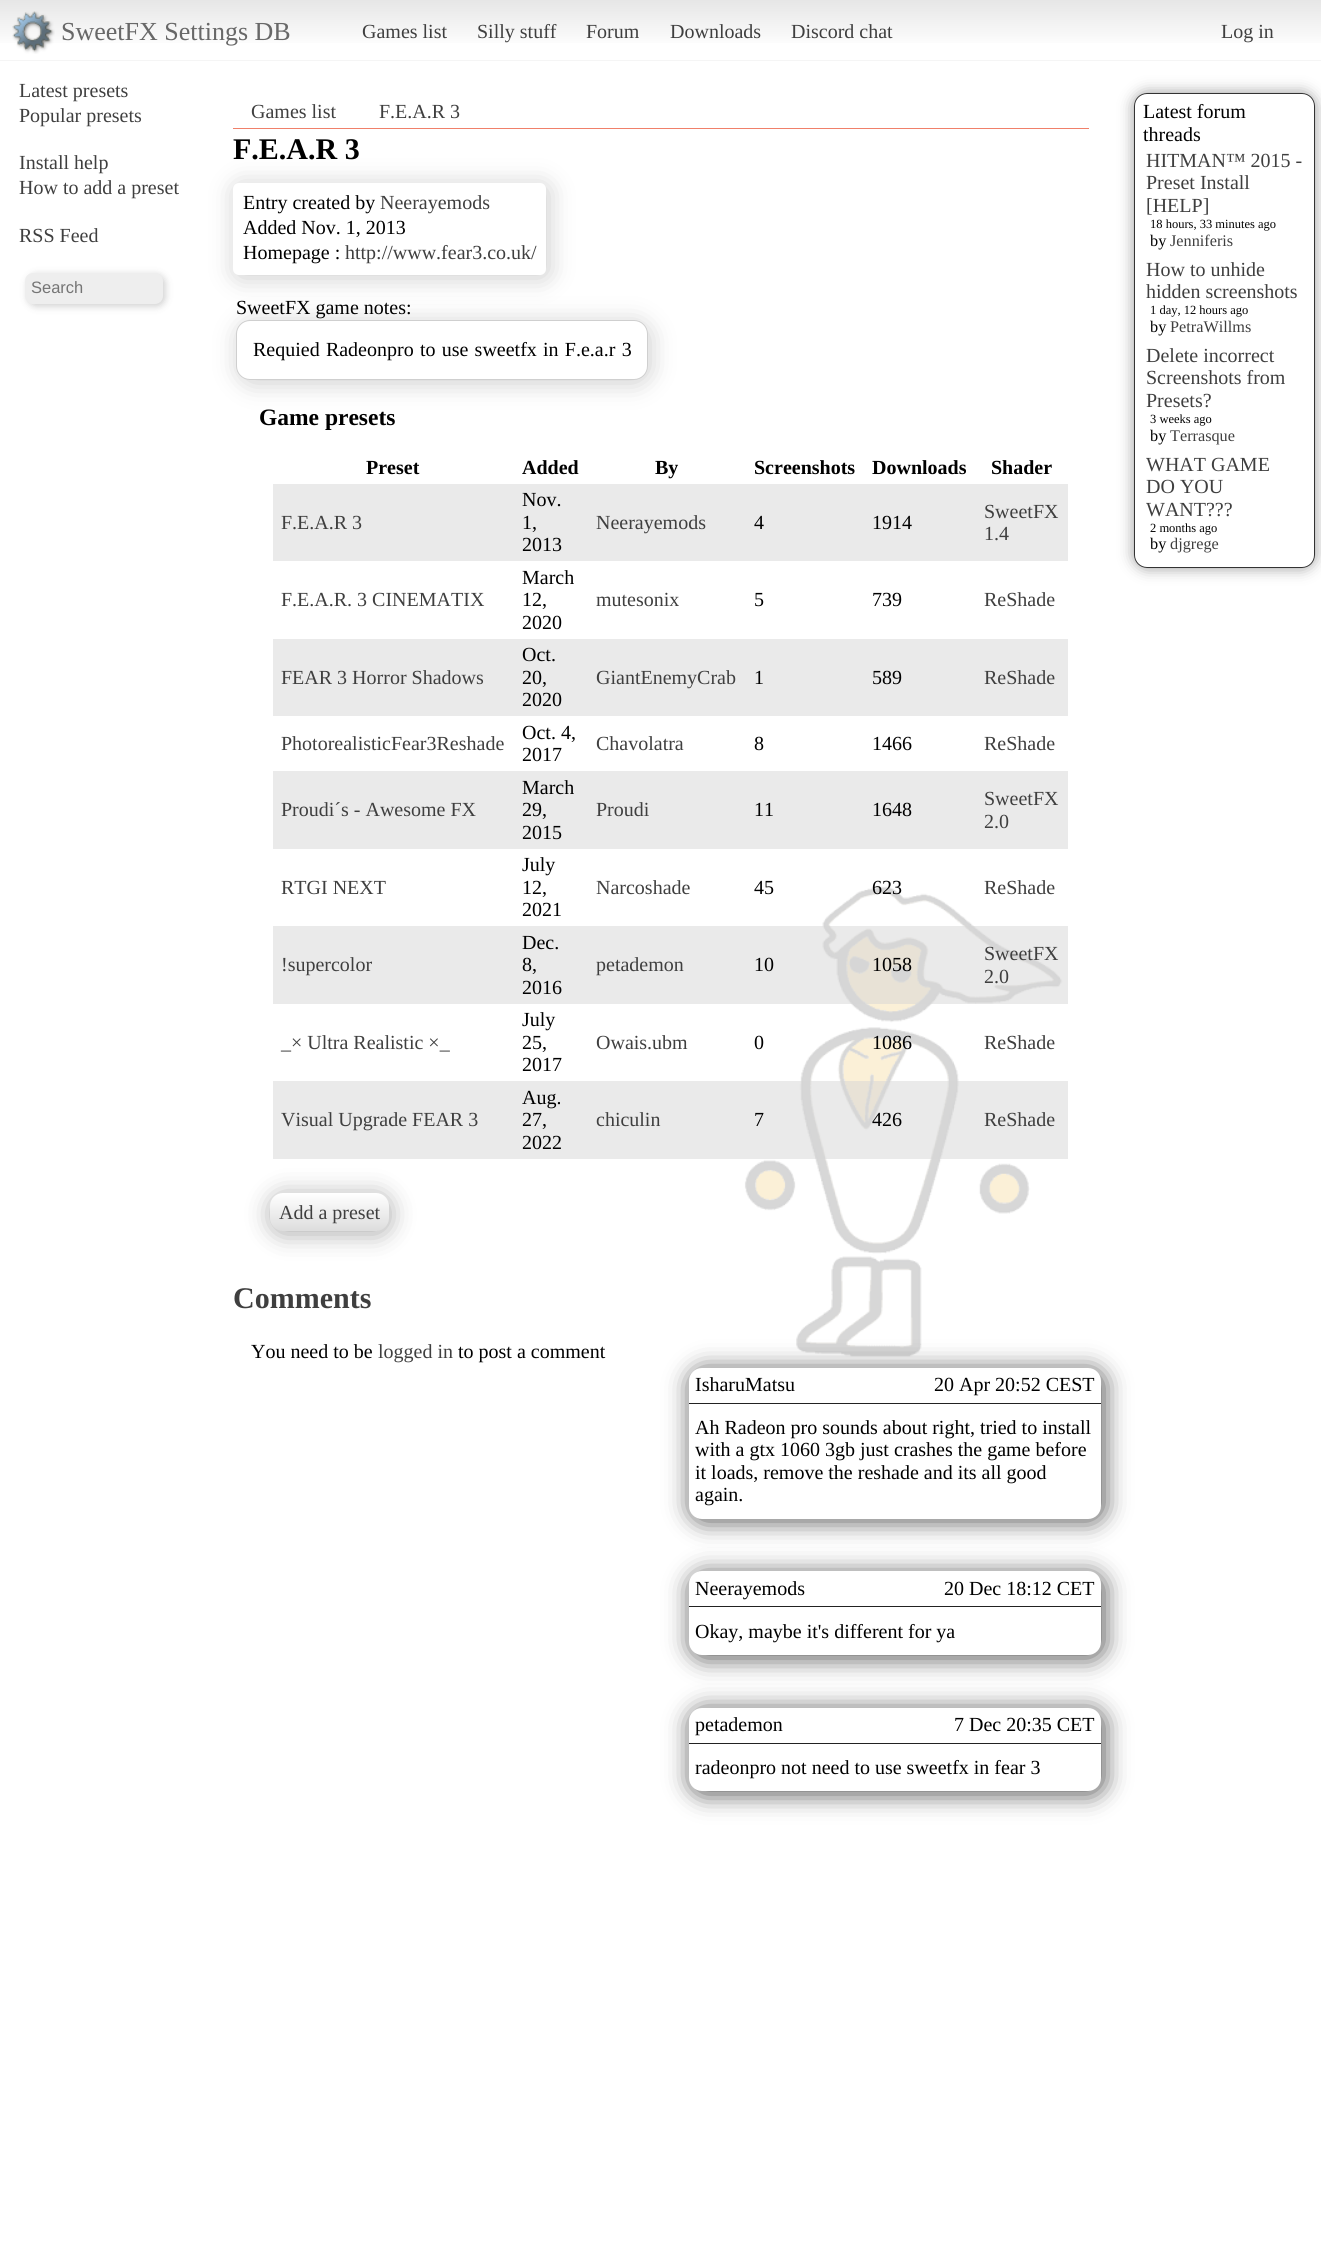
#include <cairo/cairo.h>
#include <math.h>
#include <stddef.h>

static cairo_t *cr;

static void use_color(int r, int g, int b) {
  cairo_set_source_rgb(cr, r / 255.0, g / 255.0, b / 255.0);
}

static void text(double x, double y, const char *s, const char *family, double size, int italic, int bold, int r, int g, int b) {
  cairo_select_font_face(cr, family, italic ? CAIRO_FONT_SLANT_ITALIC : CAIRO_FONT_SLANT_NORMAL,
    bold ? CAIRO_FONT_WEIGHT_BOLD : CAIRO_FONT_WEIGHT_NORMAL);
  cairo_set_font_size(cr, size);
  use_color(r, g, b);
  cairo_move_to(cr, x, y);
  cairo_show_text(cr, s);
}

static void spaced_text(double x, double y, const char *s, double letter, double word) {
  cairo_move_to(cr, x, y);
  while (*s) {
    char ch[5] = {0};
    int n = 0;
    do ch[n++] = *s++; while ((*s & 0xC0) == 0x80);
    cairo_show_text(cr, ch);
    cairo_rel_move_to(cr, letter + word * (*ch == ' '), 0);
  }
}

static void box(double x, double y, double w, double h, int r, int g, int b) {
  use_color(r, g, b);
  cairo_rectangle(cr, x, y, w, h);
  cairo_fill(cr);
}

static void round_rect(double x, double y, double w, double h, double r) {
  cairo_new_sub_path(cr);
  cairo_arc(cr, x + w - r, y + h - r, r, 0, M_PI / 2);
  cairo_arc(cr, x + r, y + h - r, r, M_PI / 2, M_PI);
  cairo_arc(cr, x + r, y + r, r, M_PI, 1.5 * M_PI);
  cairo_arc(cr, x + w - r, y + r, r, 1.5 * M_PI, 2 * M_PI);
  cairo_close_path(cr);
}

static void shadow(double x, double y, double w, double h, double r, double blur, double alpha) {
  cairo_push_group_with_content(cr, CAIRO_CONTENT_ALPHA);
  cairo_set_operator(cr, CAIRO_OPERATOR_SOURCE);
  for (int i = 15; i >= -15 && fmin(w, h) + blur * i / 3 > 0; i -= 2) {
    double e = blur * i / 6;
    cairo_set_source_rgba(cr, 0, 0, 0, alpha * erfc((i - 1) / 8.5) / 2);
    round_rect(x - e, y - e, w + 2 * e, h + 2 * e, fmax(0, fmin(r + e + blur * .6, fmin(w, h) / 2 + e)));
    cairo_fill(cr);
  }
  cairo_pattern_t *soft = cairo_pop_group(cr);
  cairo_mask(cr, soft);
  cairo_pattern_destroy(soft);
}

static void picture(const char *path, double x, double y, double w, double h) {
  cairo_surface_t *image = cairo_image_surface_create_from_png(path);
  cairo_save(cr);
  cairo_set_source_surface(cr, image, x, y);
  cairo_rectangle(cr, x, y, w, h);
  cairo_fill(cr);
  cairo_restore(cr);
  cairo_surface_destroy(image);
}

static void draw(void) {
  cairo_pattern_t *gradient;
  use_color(255, 255, 255);
  cairo_paint(cr);
  picture("img_01.png", 744, 886, 319, 471);
  gradient = cairo_pattern_create_linear(661, 0, 661, 60);
  cairo_pattern_add_color_stop_rgba(gradient, 0, 0.902, 0.902, 0.902, 1);
  cairo_pattern_add_color_stop_rgba(gradient, 0.8, 1, 1, 1, 1);
  cairo_set_source(cr, gradient);
  cairo_pattern_destroy(gradient);
  cairo_rectangle(cr, 0, 0, 1321, 43);
  cairo_fill(cr);
  box(0, 60, 1321, 1, 245, 245, 245);
  picture("img_02.png", 12, 11, 43, 43);
  use_color(50, 50, 50);
  shadow(28, 275, 137, 31, 8, 4, 0.25);
  use_color(238, 238, 238);
  round_rect(25, 273, 138, 31, 8);
  cairo_fill(cr);
  box(233, 128, 856, 1, 240, 128, 106);
  use_color(182, 182, 182);
  shadow(235, 185, 314, 93, 6, 12.5, 0.68);
  use_color(255, 255, 255);
  round_rect(233, 183, 313, 92, 6);
  cairo_fill(cr);
  use_color(182, 182, 182);
  shadow(239, 323, 411, 60, 14, 12.5, 0.68);
  use_color(255, 255, 255);
  round_rect(236, 320, 412, 60, 14);
  cairo_fill(cr);
  round_rect(236.5, 320.5, 411, 59, 13.5);
  cairo_set_source_rgba(cr, 0, 0, 0, 0.19);
  cairo_set_line_width(cr, 1);
  cairo_stroke(cr);
  box(273, 484, 795, 77, 234, 234, 234);
  box(273, 639, 795, 77, 234, 234, 234);
  box(273, 771, 795, 78, 234, 234, 234);
  cairo_set_source_rgba(cr, 0.835, 0.835, 0.835, 0.49);
  cairo_rectangle(cr, 273, 926, 795, 78);
  cairo_fill(cr);
  cairo_rectangle(cr, 273, 1081, 795, 78);
  cairo_fill(cr);
  use_color(0, 0, 0);
  shadow(271, 1195, 119, 39, 13, 12.5, 0.33);
  gradient = cairo_pattern_create_linear(329, 1193, 329, 1231);
  cairo_pattern_add_color_stop_rgba(gradient, 0, 1, 1, 1, 1);
  cairo_pattern_add_color_stop_rgba(gradient, 1, 0.867, 0.867, 0.867, 1);
  cairo_set_source(cr, gradient);
  cairo_pattern_destroy(gradient);
  round_rect(270, 1193, 119, 38, 13);
  cairo_fill(cr);
  use_color(0, 0, 0);
  shadow(691, 1370, 413, 151, 13, 12.5, 0.68);
  use_color(255, 255, 255);
  round_rect(689, 1368, 412, 151, 13);
  cairo_fill(cr);
  box(689, 1403, 412, 1, 34, 34, 34);
  use_color(0, 0, 0);
  shadow(691, 1574, 413, 84, 13, 12.5, 0.68);
  use_color(255, 255, 255);
  round_rect(689, 1571, 412, 84, 13);
  cairo_fill(cr);
  box(689, 1606, 412, 1, 34, 34, 34);
  use_color(0, 0, 0);
  shadow(691, 1710, 413, 84, 13, 12.5, 0.68);
  use_color(255, 255, 255);
  round_rect(689, 1708, 412, 83, 13);
  cairo_fill(cr);
  box(689, 1743, 412, 1, 34, 34, 34);
  cairo_save(cr);
  cairo_set_fill_rule(cr, CAIRO_FILL_RULE_EVEN_ODD);
  cairo_new_path(cr);
  cairo_move_to(cr, 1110, 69);
  cairo_line_to(cr, 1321, 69);
  cairo_line_to(cr, 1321, 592);
  cairo_line_to(cr, 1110, 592);
  cairo_close_path(cr);
  cairo_move_to(cr, 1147, 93);
  cairo_line_to(cr, 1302, 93);
  cairo_curve_to(cr, 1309, 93, 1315, 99, 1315, 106);
  cairo_line_to(cr, 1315, 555);
  cairo_curve_to(cr, 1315, 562, 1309, 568, 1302, 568);
  cairo_line_to(cr, 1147, 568);
  cairo_curve_to(cr, 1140, 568, 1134, 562, 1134, 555);
  cairo_line_to(cr, 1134, 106);
  cairo_curve_to(cr, 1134, 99, 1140, 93, 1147, 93);
  cairo_close_path(cr);
  cairo_clip(cr);
  use_color(153, 153, 153);
  shadow(1134, 93, 181, 475, 13, 7.5, 1);
  cairo_restore(cr);
  round_rect(1134.5, 93.5, 180, 474, 12.5);
  use_color(51, 51, 51);
  cairo_stroke(cr);
  text(61, 40, "SweetFX Settings DB", "Liberation Serif", 26, 0, 0, 104, 104, 104);
  text(362, 38, "Games list", "Liberation Serif", 20, 0, 0, 63, 63, 63);
  text(477, 38, "Silly stuff", "Liberation Serif", 20, 0, 0, 63, 63, 63);
  text(586, 38, "Forum", "Liberation Serif", 20, 0, 0, 63, 63, 63);
  text(670, 38, "Downloads", "Liberation Serif", 20, 0, 0, 63, 63, 63);
  text(791, 38, "Discord chat", "Liberation Serif", 20, 0, 0, 63, 63, 63);
  text(1221, 38, "Log in", "Liberation Serif", 20, 0, 0, 63, 63, 63);
  text(19, 97, "Latest presets", "Liberation Serif", 20, 0, 0, 63, 63, 63);
  text(19, 122, "Popular presets", "Liberation Serif", 20, 0, 0, 63, 63, 63);
  text(19, 169, "Install help", "Liberation Serif", 20, 0, 0, 63, 63, 63);
  text(19, 194, "How to add a preset", "Liberation Serif", 20, 0, 0, 63, 63, 63);
  text(19, 242, "RSS Feed", "Liberation Serif", 20, 0, 0, 63, 63, 63);
  text(31, 293, "Search", "Liberation Sans", 16.5, 0, 0, 117, 117, 117);
  text(251, 118, "Games list", "Liberation Serif", 20, 0, 0, 63, 63, 63);
  text(379, 118, "F.E.A.R 3", "Liberation Serif", 20, 0, 0, 63, 63, 63);
  text(233, 159, "F.E.A.R 3", "Liberation Serif", 30, 0, 1, 0, 0, 0);
  text(243, 209, "Entry created by", "Liberation Serif", 20, 0, 0, 0, 0, 0);
  text(380, 209, "Neerayemods", "Liberation Serif", 20, 0, 0, 63, 63, 63);
  text(243, 234, "Added Nov. 1, 2013", "Liberation Serif", 20, 0, 0, 0, 0, 0);
  text(243, 259, "Homepage :", "Liberation Serif", 20, 0, 0, 0, 0, 0);
  text(345, 259, "http://www.fear3.co.uk/", "Liberation Serif", 20, 0, 0, 63, 63, 63);
  text(236, 314, "SweetFX game notes:", "Liberation Serif", 20, 0, 0, 0, 0, 0);
  spaced_text(253, 356, "Requied Radeonpro to use sweetfx in F.e.a.r 3", 0, 1.25);
  text(259, 425, "Game presets", "Liberation Serif", 23.5, 0, 1, 0, 0, 0);
  text(366, 474, "Preset", "Liberation Serif", 20, 0, 1, 0, 0, 0);
  text(522, 474, "Added", "Liberation Serif", 20, 0, 1, 0, 0, 0);
  text(655, 474, "By", "Liberation Serif", 20, 0, 1, 0, 0, 0);
  text(754, 474, "Screenshots", "Liberation Serif", 20, 0, 1, 0, 0, 0);
  text(872, 474, "Downloads", "Liberation Serif", 20, 0, 1, 0, 0, 0);
  text(991, 474, "Shader", "Liberation Serif", 20, 0, 1, 0, 0, 0);
  text(281, 529, "F.E.A.R 3", "Liberation Serif", 20, 0, 0, 63, 63, 63);
  text(522, 506, "Nov.", "Liberation Serif", 20, 0, 0, 0, 0, 0);
  text(522, 529, "1,", "Liberation Serif", 20, 0, 0, 0, 0, 0);
  text(522, 551, "2013", "Liberation Serif", 20, 0, 0, 0, 0, 0);
  text(596, 529, "Neerayemods", "Liberation Serif", 20, 0, 0, 63, 63, 63);
  text(754, 529, "4", "Liberation Serif", 20, 0, 0, 0, 0, 0);
  text(872, 529, "1914", "Liberation Serif", 20, 0, 0, 0, 0, 0);
  text(984, 518, "SweetFX", "Liberation Serif", 20, 0, 0, 63, 63, 63);
  text(984, 540, "1.4", "Liberation Serif", 20, 0, 0, 63, 63, 63);
  text(281, 606, "F.E.A.R. 3 CINEMATIX", "Liberation Serif", 20, 0, 0, 63, 63, 63);
  text(522, 584, "March", "Liberation Serif", 20, 0, 0, 0, 0, 0);
  text(522, 606, "12,", "Liberation Serif", 20, 0, 0, 0, 0, 0);
  text(522, 629, "2020", "Liberation Serif", 20, 0, 0, 0, 0, 0);
  text(596, 606, "mutesonix", "Liberation Serif", 20, 0, 0, 63, 63, 63);
  text(754, 606, "5", "Liberation Serif", 20, 0, 0, 0, 0, 0);
  text(872, 606, "739", "Liberation Serif", 20, 0, 0, 0, 0, 0);
  text(984, 606, "ReShade", "Liberation Serif", 20, 0, 0, 63, 63, 63);
  text(281, 684, "FEAR 3 Horror Shadows", "Liberation Serif", 20, 0, 0, 63, 63, 63);
  text(522, 661, "Oct.", "Liberation Serif", 20, 0, 0, 0, 0, 0);
  text(522, 684, "20,", "Liberation Serif", 20, 0, 0, 0, 0, 0);
  text(522, 706, "2020", "Liberation Serif", 20, 0, 0, 0, 0, 0);
  text(596, 684, "GiantEnemyCrab", "Liberation Serif", 20, 0, 0, 63, 63, 63);
  text(754, 684, "1", "Liberation Serif", 20, 0, 0, 0, 0, 0);
  text(872, 684, "589", "Liberation Serif", 20, 0, 0, 0, 0, 0);
  text(984, 684, "ReShade", "Liberation Serif", 20, 0, 0, 63, 63, 63);
  text(281, 750, "PhotorealisticFear3Reshade", "Liberation Serif", 20, 0, 0, 63, 63, 63);
  text(522, 739, "Oct. 4,", "Liberation Serif", 20, 0, 0, 0, 0, 0);
  text(522, 761, "2017", "Liberation Serif", 20, 0, 0, 0, 0, 0);
  text(596, 750, "Chavolatra", "Liberation Serif", 20, 0, 0, 63, 63, 63);
  text(754, 750, "8", "Liberation Serif", 20, 0, 0, 0, 0, 0);
  text(872, 750, "1466", "Liberation Serif", 20, 0, 0, 0, 0, 0);
  text(984, 750, "ReShade", "Liberation Serif", 20, 0, 0, 63, 63, 63);
  text(281, 816, "Proudi´s - Awesome FX", "Liberation Serif", 20, 0, 0, 63, 63, 63);
  text(522, 794, "March", "Liberation Serif", 20, 0, 0, 0, 0, 0);
  text(522, 816, "29,", "Liberation Serif", 20, 0, 0, 0, 0, 0);
  text(522, 839, "2015", "Liberation Serif", 20, 0, 0, 0, 0, 0);
  text(596, 816, "Proudi", "Liberation Serif", 20, 0, 0, 63, 63, 63);
  text(754, 816, "11", "Liberation Serif", 20, 0, 0, 0, 0, 0);
  text(872, 816, "1648", "Liberation Serif", 20, 0, 0, 0, 0, 0);
  text(984, 805, "SweetFX", "Liberation Serif", 20, 0, 0, 63, 63, 63);
  text(984, 828, "2.0", "Liberation Serif", 20, 0, 0, 63, 63, 63);
  text(281, 894, "RTGI NEXT", "Liberation Serif", 20, 0, 0, 63, 63, 63);
  text(522, 871, "July", "Liberation Serif", 20, 0, 0, 0, 0, 0);
  text(522, 894, "12,", "Liberation Serif", 20, 0, 0, 0, 0, 0);
  text(522, 916, "2021", "Liberation Serif", 20, 0, 0, 0, 0, 0);
  text(596, 894, "Narcoshade", "Liberation Serif", 20, 0, 0, 63, 63, 63);
  text(754, 894, "45", "Liberation Serif", 20, 0, 0, 0, 0, 0);
  text(872, 894, "623", "Liberation Serif", 20, 0, 0, 0, 0, 0);
  text(984, 894, "ReShade", "Liberation Serif", 20, 0, 0, 63, 63, 63);
  text(281, 971, "!supercolor", "Liberation Serif", 20, 0, 0, 63, 63, 63);
  text(522, 949, "Dec.", "Liberation Serif", 20, 0, 0, 0, 0, 0);
  text(522, 971, "8,", "Liberation Serif", 20, 0, 0, 0, 0, 0);
  text(522, 994, "2016", "Liberation Serif", 20, 0, 0, 0, 0, 0);
  text(596, 971, "petademon", "Liberation Serif", 20, 0, 0, 63, 63, 63);
  text(754, 971, "10", "Liberation Serif", 20, 0, 0, 0, 0, 0);
  text(872, 971, "1058", "Liberation Serif", 20, 0, 0, 0, 0, 0);
  text(984, 960, "SweetFX", "Liberation Serif", 20, 0, 0, 63, 63, 63);
  text(984, 983, "2.0", "Liberation Serif", 20, 0, 0, 63, 63, 63);
  text(281, 1049, "_× Ultra Realistic ×_", "Liberation Serif", 20, 0, 0, 63, 63, 63);
  text(522, 1026, "July", "Liberation Serif", 20, 0, 0, 0, 0, 0);
  text(522, 1049, "25,", "Liberation Serif", 20, 0, 0, 0, 0, 0);
  text(522, 1071, "2017", "Liberation Serif", 20, 0, 0, 0, 0, 0);
  text(596, 1049, "Owais.ubm", "Liberation Serif", 20, 0, 0, 63, 63, 63);
  text(754, 1049, "0", "Liberation Serif", 20, 0, 0, 0, 0, 0);
  text(872, 1049, "1086", "Liberation Serif", 20, 0, 0, 0, 0, 0);
  text(984, 1049, "ReShade", "Liberation Serif", 20, 0, 0, 63, 63, 63);
  text(281, 1126, "Visual Upgrade FEAR 3", "Liberation Serif", 20, 0, 0, 63, 63, 63);
  text(522, 1104, "Aug.", "Liberation Serif", 20, 0, 0, 0, 0, 0);
  text(522, 1126, "27,", "Liberation Serif", 20, 0, 0, 0, 0, 0);
  text(522, 1149, "2022", "Liberation Serif", 20, 0, 0, 0, 0, 0);
  text(596, 1126, "chiculin", "Liberation Serif", 20, 0, 0, 63, 63, 63);
  text(754, 1126, "7", "Liberation Serif", 20, 0, 0, 0, 0, 0);
  text(872, 1126, "426", "Liberation Serif", 20, 0, 0, 0, 0, 0);
  text(984, 1126, "ReShade", "Liberation Serif", 20, 0, 0, 63, 63, 63);
  text(279, 1219, "Add a preset", "Liberation Serif", 20, 0, 0, 63, 63, 63);
  text(233, 1308, "Comments", "Liberation Serif", 30, 0, 1, 63, 63, 63);
  text(251, 1358, "You need to be", "Liberation Serif", 20, 0, 0, 0, 0, 0);
  text(378, 1358, "logged in", "Liberation Serif", 20, 0, 0, 63, 63, 63);
  text(458, 1358, "to post a comment", "Liberation Serif", 20, 0, 0, 0, 0, 0);
  text(695, 1391, "IsharuMatsu", "Liberation Serif", 20, 0, 0, 0, 0, 0);
  text(934, 1391, "20 Apr 20:52 CEST", "Liberation Serif", 20, 0, 0, 0, 0, 0);
  text(695, 1434, "Ah Radeon pro sounds about right, tried to install", "Liberation Serif", 20, 0, 0, 0, 0, 0);
  text(695, 1456, "with a gtx 1060 3gb just crashes the game before", "Liberation Serif", 20, 0, 0, 0, 0, 0);
  text(695, 1479, "it loads, remove the reshade and its all good", "Liberation Serif", 20, 0, 0, 0, 0, 0);
  text(695, 1501, "again.", "Liberation Serif", 20, 0, 0, 0, 0, 0);
  text(695, 1595, "Neerayemods", "Liberation Serif", 20, 0, 0, 0, 0, 0);
  text(944, 1595, "20 Dec 18:12 CET", "Liberation Serif", 20, 0, 0, 0, 0, 0);
  text(695, 1638, "Okay, maybe it's different for ya", "Liberation Serif", 20, 0, 0, 0, 0, 0);
  text(695, 1731, "petademon", "Liberation Serif", 20, 0, 0, 0, 0, 0);
  text(954, 1731, "7 Dec 20:35 CET", "Liberation Serif", 20, 0, 0, 0, 0, 0);
  text(695, 1774, "radeonpro not need to use sweetfx in fear 3", "Liberation Serif", 20, 0, 0, 0, 0, 0);
  text(1143, 118, "Latest forum", "Liberation Serif", 20, 0, 0, 0, 0, 0);
  text(1143, 141, "threads", "Liberation Serif", 20, 0, 0, 0, 0, 0);
  text(1146, 167, "HITMAN™ 2015 -", "Liberation Serif", 20, 0, 0, 63, 63, 63);
  text(1146, 189, "Preset Install", "Liberation Serif", 20, 0, 0, 63, 63, 63);
  text(1146, 212, "[HELP]", "Liberation Serif", 20, 0, 0, 63, 63, 63);
  text(1150, 228, "18 hours, 33 minutes ago", "Liberation Serif", 12.5, 0, 0, 0, 0, 0);
  text(1150, 246, "by", "Liberation Serif", 16.25, 0, 0, 0, 0, 0);
  text(1170, 246, "Jenniferis", "Liberation Serif", 16.25, 0, 0, 63, 63, 63);
  text(1146, 276, "How to unhide", "Liberation Serif", 20, 0, 0, 63, 63, 63);
  text(1146, 298, "hidden screenshots", "Liberation Serif", 20, 0, 0, 63, 63, 63);
  text(1150, 314, "1 day, 12 hours ago", "Liberation Serif", 12.5, 0, 0, 0, 0, 0);
  text(1150, 332, "by", "Liberation Serif", 16.25, 0, 0, 0, 0, 0);
  text(1170, 332, "PetraWillms", "Liberation Serif", 16.25, 0, 0, 63, 63, 63);
  text(1146, 362, "Delete incorrect", "Liberation Serif", 20, 0, 0, 63, 63, 63);
  text(1146, 384, "Screenshots from", "Liberation Serif", 20, 0, 0, 63, 63, 63);
  text(1146, 407, "Presets?", "Liberation Serif", 20, 0, 0, 63, 63, 63);
  text(1150, 423, "3 weeks ago", "Liberation Serif", 12.5, 0, 0, 0, 0, 0);
  text(1150, 441, "by", "Liberation Serif", 16.25, 0, 0, 0, 0, 0);
  text(1170, 441, "Terrasque", "Liberation Serif", 16.25, 0, 0, 63, 63, 63);
  text(1146, 471, "WHAT GAME", "Liberation Serif", 20, 0, 0, 63, 63, 63);
  text(1146, 493, "DO YOU", "Liberation Serif", 20, 0, 0, 63, 63, 63);
  text(1146, 516, "WANT?\077?", "Liberation Serif", 20, 0, 0, 63, 63, 63);
  text(1150, 532, "2 months ago", "Liberation Serif", 12.5, 0, 0, 0, 0, 0);
  text(1150, 549, "by", "Liberation Serif", 16.25, 0, 0, 0, 0, 0);
  text(1170, 549, "djgrege", "Liberation Serif", 16.25, 0, 0, 63, 63, 63);
}

int main(void) {
  cairo_surface_t *surface = cairo_image_surface_create(CAIRO_FORMAT_RGB24, 1321, 2243);
  cr = cairo_create(surface);
  cairo_font_options_t *options = cairo_font_options_create();
  cairo_font_options_set_hint_metrics(options, CAIRO_HINT_METRICS_OFF);
  cairo_font_options_set_hint_style(options, CAIRO_HINT_STYLE_NONE);
  cairo_set_font_options(cr, options);
  cairo_set_miter_limit(cr, 4);
  draw();
  cairo_surface_write_to_png(surface, "out.png");
  cairo_font_options_destroy(options);
  cairo_destroy(cr);
  cairo_surface_destroy(surface);
  return 0;
}
